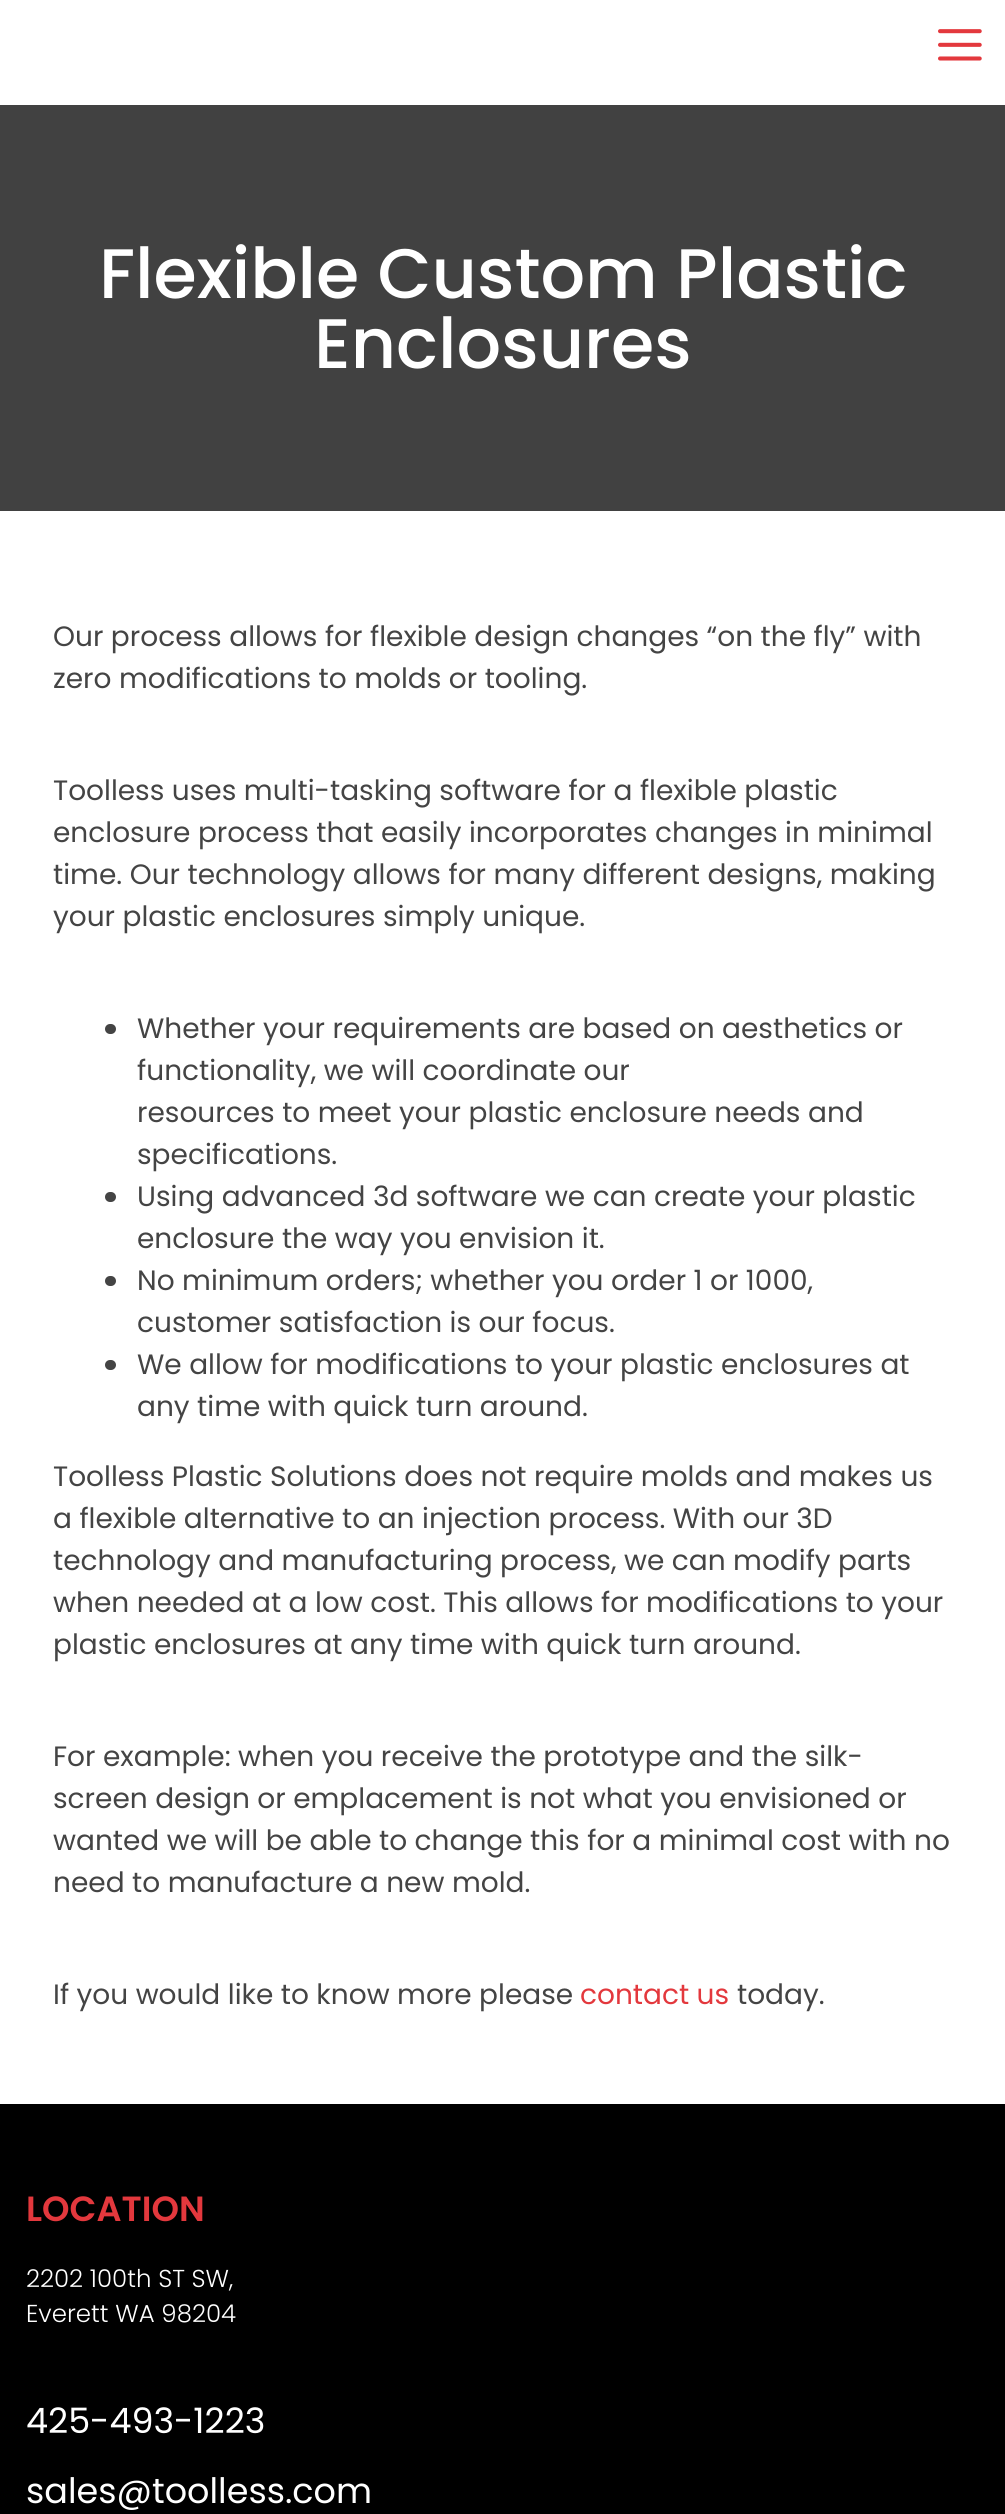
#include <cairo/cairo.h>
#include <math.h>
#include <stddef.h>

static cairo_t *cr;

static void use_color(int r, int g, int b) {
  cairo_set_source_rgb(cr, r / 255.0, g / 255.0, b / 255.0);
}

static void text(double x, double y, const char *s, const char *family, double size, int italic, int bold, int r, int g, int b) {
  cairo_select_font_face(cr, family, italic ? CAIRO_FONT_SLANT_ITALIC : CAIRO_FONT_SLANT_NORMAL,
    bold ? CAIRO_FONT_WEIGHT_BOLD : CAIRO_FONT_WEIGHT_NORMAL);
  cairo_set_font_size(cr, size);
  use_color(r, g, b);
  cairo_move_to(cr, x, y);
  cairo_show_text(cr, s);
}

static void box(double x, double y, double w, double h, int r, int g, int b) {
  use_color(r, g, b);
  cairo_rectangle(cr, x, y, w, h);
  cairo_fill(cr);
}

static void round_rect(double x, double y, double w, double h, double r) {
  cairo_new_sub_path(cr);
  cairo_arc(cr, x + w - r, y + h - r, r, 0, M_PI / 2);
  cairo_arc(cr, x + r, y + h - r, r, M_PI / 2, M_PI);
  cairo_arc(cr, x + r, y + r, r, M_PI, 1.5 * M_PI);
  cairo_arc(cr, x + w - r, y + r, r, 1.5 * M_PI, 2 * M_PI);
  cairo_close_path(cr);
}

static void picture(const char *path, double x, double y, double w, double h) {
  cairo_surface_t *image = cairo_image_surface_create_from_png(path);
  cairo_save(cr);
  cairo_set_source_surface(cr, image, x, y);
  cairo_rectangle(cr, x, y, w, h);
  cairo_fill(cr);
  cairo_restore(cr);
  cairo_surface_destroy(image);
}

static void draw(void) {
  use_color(65, 65, 65);
  cairo_paint(cr);
  box(0, 0, 1005, 105, 255, 255, 255);
  picture("img_01.png", 938, 29, 44, 32);
  box(0, 511, 1005, 1593, 255, 255, 255);
  use_color(68, 68, 68);
  round_rect(105, 1024, 11, 10, 5);
  cairo_fill(cr);
  round_rect(105, 1192, 11, 10, 5);
  cairo_fill(cr);
  round_rect(105, 1276, 11, 10, 5);
  cairo_fill(cr);
  round_rect(105, 1360, 11, 10, 5);
  cairo_fill(cr);
  box(0, 2104, 1005, 410, 0, 0, 0);
  text(99, 298, "Flexible Custom Plastic", "Poppins Medium", 70, 0, 0, 255, 255, 255);
  text(314, 368, "Enclosures", "Poppins Medium", 70, 0, 0, 255, 255, 255);
  text(53, 646, "Our process allows for flexible design changes “on the fly” with", "Poppins", 28, 0, 0, 68, 68, 68);
  text(53, 688, "zero modifications to molds or tooling.", "Poppins", 28, 0, 0, 68, 68, 68);
  text(53, 800, "Toolless uses multi-tasking software for a flexible plastic", "Poppins", 28, 0, 0, 68, 68, 68);
  text(53, 842, "enclosure process that easily incorporates changes in minimal", "Poppins", 28, 0, 0, 68, 68, 68);
  text(53, 884, "time. Our technology allows for many different designs, making", "Poppins", 28, 0, 0, 68, 68, 68);
  text(53, 926, "your plastic enclosures simply unique.", "Poppins", 28, 0, 0, 68, 68, 68);
  text(137, 1038, "Whether your requirements are based on aesthetics or", "Poppins", 28, 0, 0, 68, 68, 68);
  text(137, 1080, "functionality, we will coordinate our", "Poppins", 28, 0, 0, 68, 68, 68);
  text(137, 1122, "resources to meet your plastic enclosure needs and", "Poppins", 28, 0, 0, 68, 68, 68);
  text(137, 1164, "specifications.", "Poppins", 28, 0, 0, 68, 68, 68);
  text(137, 1206, "Using advanced 3d software we can create your plastic", "Poppins", 28, 0, 0, 68, 68, 68);
  text(137, 1248, "enclosure the way you envision it.", "Poppins", 28, 0, 0, 68, 68, 68);
  text(137, 1290, "No minimum orders; whether you order 1 or 1000,", "Poppins", 28, 0, 0, 68, 68, 68);
  text(137, 1332, "customer satisfaction is our focus.", "Poppins", 28, 0, 0, 68, 68, 68);
  text(137, 1374, "We allow for modifications to your plastic enclosures at", "Poppins", 28, 0, 0, 68, 68, 68);
  text(137, 1416, "any time with quick turn around.", "Poppins", 28, 0, 0, 68, 68, 68);
  text(53, 1486, "Toolless Plastic Solutions does not require molds and makes us", "Poppins", 28, 0, 0, 68, 68, 68);
  text(53, 1528, "a flexible alternative to an injection process. With our 3D", "Poppins", 28, 0, 0, 68, 68, 68);
  text(53, 1570, "technology and manufacturing process, we can modify parts", "Poppins", 28, 0, 0, 68, 68, 68);
  text(53, 1612, "when needed at a low cost. This allows for modifications to your", "Poppins", 28, 0, 0, 68, 68, 68);
  text(53, 1654, "plastic enclosures at any time with quick turn around.", "Poppins", 28, 0, 0, 68, 68, 68);
  text(53, 1766, "For example: when you receive the prototype and the silk-", "Poppins", 28, 0, 0, 68, 68, 68);
  text(53, 1808, "screen design or emplacement is not what you envisioned or", "Poppins", 28, 0, 0, 68, 68, 68);
  text(53, 1850, "wanted we will be able to change this for a minimal cost with no", "Poppins", 28, 0, 0, 68, 68, 68);
  text(53, 1892, "need to manufacture a new mold.", "Poppins", 28, 0, 0, 68, 68, 68);
  text(53, 2004, "If you would like to know more please", "Poppins", 28, 0, 0, 68, 68, 68);
  text(580, 2004, "contact us", "Poppins", 28, 0, 0, 227, 56, 61);
  text(737, 2004, "today.", "Poppins", 28, 0, 0, 68, 68, 68);
  text(26, 2221, "LOCATION", "Poppins SemiBold", 35, 0, 0, 227, 56, 61);
  text(26, 2287, "2202 100th ST SW,", "Poppins Light", 24.5, 0, 0, 255, 255, 255);
  text(26, 2322, "Everett WA 98204", "Poppins Light", 24.5, 0, 0, 255, 255, 255);
  text(26, 2433, "425-493-1223", "Poppins", 35, 0, 0, 255, 255, 255);
  text(26, 2503, "sales@toolless.com", "Poppins", 35, 0, 0, 255, 255, 255);
}

int main(void) {
  cairo_surface_t *surface = cairo_image_surface_create(CAIRO_FORMAT_RGB24, 1005, 2514);
  cr = cairo_create(surface);
  cairo_font_options_t *options = cairo_font_options_create();
  cairo_font_options_set_hint_metrics(options, CAIRO_HINT_METRICS_OFF);
  cairo_font_options_set_hint_style(options, CAIRO_HINT_STYLE_NONE);
  cairo_set_font_options(cr, options);
  cairo_set_miter_limit(cr, 4);
  draw();
  cairo_surface_write_to_png(surface, "out.png");
  cairo_font_options_destroy(options);
  cairo_destroy(cr);
  cairo_surface_destroy(surface);
  return 0;
}
